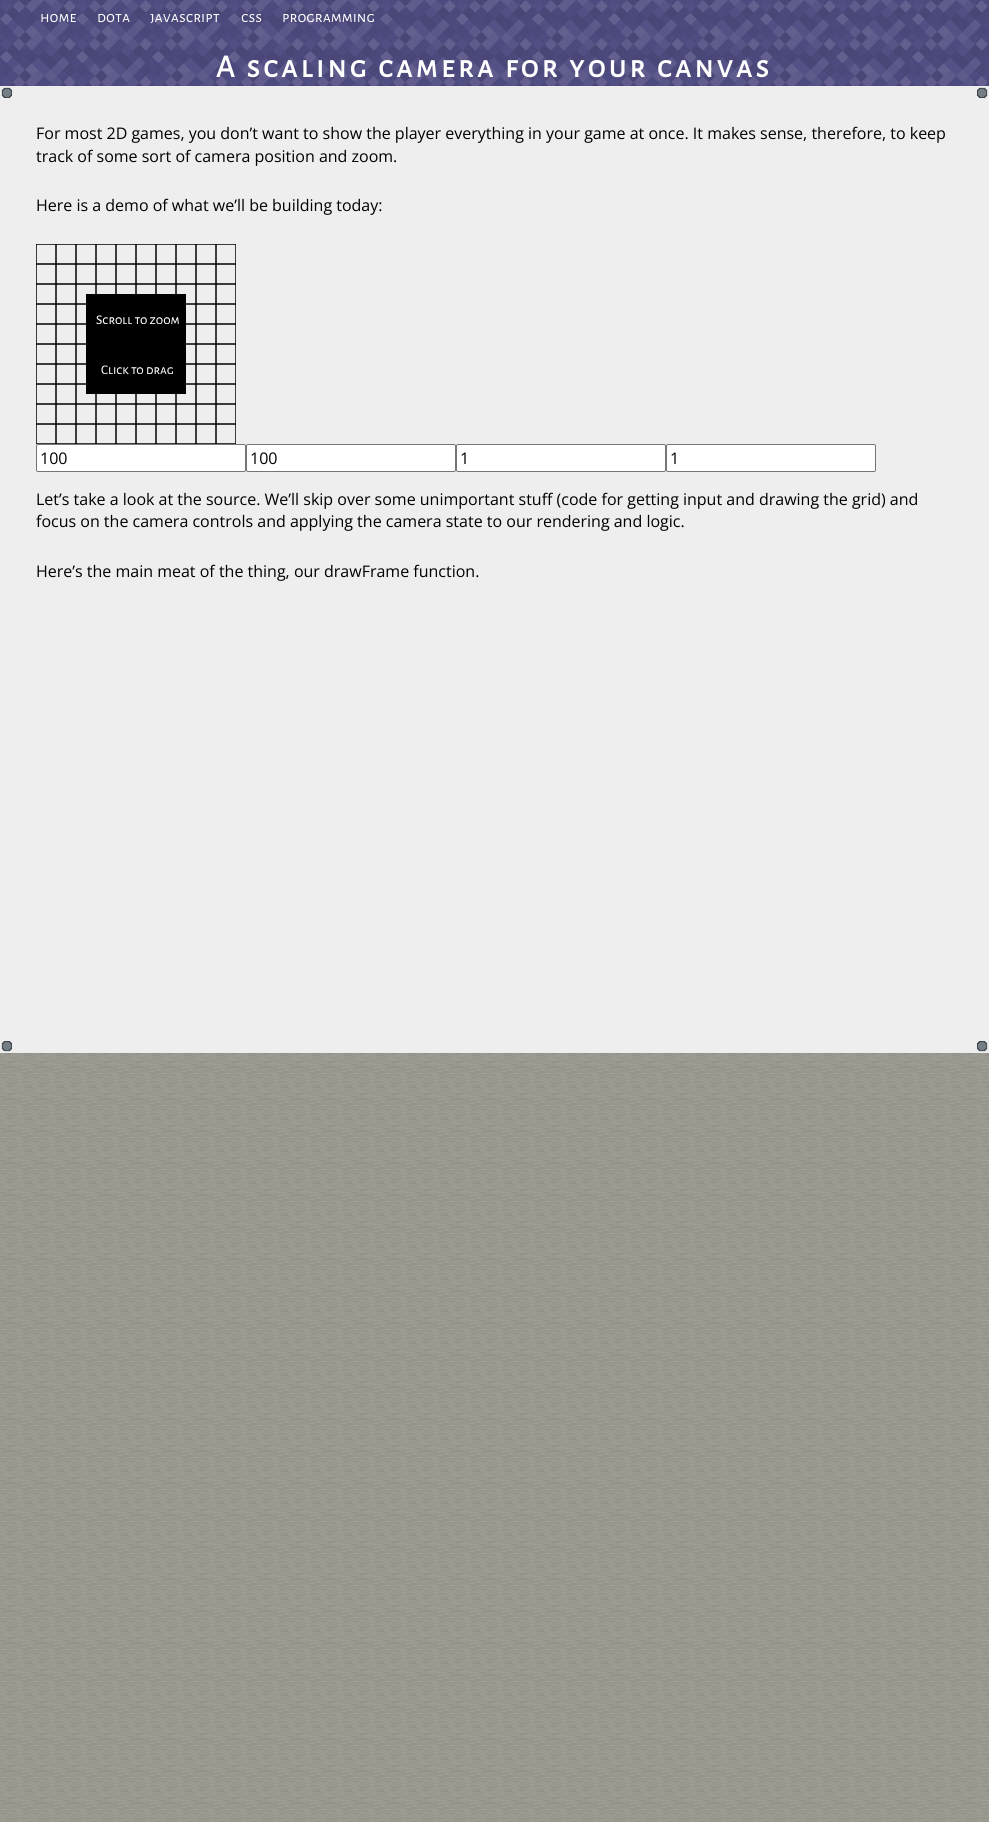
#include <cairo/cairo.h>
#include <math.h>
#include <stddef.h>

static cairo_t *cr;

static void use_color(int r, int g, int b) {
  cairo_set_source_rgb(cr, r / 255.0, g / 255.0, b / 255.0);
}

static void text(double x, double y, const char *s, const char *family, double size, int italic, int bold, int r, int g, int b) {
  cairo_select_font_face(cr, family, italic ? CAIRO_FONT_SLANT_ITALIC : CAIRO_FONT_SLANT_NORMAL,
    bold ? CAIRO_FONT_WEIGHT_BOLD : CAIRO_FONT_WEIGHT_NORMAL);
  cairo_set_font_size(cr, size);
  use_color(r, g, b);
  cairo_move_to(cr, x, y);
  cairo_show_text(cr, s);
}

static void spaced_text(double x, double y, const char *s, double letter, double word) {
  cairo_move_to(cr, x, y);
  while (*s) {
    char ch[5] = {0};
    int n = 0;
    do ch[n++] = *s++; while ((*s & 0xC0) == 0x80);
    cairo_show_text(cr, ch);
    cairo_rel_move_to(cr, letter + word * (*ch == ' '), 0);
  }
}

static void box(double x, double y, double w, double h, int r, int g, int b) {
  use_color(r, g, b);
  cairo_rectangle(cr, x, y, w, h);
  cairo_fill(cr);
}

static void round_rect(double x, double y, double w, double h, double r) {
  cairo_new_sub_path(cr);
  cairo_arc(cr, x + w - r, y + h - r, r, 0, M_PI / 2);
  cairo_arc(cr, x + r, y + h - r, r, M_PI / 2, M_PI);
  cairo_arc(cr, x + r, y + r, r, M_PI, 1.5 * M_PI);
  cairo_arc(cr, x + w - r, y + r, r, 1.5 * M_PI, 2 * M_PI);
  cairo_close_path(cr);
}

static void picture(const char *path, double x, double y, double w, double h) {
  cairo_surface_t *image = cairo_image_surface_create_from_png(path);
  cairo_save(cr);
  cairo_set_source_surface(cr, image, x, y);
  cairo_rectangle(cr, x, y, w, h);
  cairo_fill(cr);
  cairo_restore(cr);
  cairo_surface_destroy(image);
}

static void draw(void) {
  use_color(255, 255, 255);
  cairo_paint(cr);
  picture("img_01.png", 0, 1053, 989, 769);
  picture("img_02.png", 0, 0, 989, 86);
  box(0, 86, 989, 967, 238, 238, 238);
  picture("img_03.png", 1, 87, 987, 965);
  picture("img_04.png", 36, 244, 200, 200);
  use_color(255, 255, 255);
  round_rect(36.5, 444.5, 209, 27, 1.5);
  cairo_fill_preserve(cr);
  use_color(118, 118, 118);
  cairo_set_line_width(cr, 1);
  cairo_stroke(cr);
  use_color(255, 255, 255);
  round_rect(246.5, 444.5, 209, 27, 1.5);
  cairo_fill_preserve(cr);
  use_color(118, 118, 118);
  cairo_stroke(cr);
  use_color(255, 255, 255);
  round_rect(456.5, 444.5, 209, 27, 1.5);
  cairo_fill_preserve(cr);
  use_color(118, 118, 118);
  cairo_stroke(cr);
  use_color(255, 255, 255);
  round_rect(666.5, 444.5, 209, 27, 1.5);
  cairo_fill_preserve(cr);
  use_color(118, 118, 118);
  cairo_stroke(cr);
  text(40, 22, "home", "Alegreya Sans SC", 16, 0, 0, 255, 255, 255);
  text(97, 22, "dota", "Alegreya Sans SC", 16, 0, 0, 255, 255, 255);
  text(150, 22, "javascript", "Alegreya Sans SC", 16, 0, 0, 255, 255, 255);
  text(241, 22, "css", "Alegreya Sans SC", 16, 0, 0, 255, 255, 255);
  text(282, 22, "programming", "Alegreya Sans SC", 16, 0, 0, 255, 255, 255);
  cairo_select_font_face(cr, "Alegreya Sans SC", CAIRO_FONT_SLANT_NORMAL, CAIRO_FONT_WEIGHT_BOLD);
  cairo_set_font_size(cr, 32);
  spaced_text(216, 77, "A scaling camera for your canvas", 3.2, 0);
  text(36, 139, "For most 2D games, you don’t want to show the player everything in your game at once. It makes sense, therefore, to keep", "Open Sans", 16, 0, 0, 0, 0, 0);
  text(36, 162, "track of some sort of camera position and zoom.", "Open Sans", 16, 0, 0, 0, 0, 0);
  text(36, 211, "Here is a demo of what we’ll be building today:", "Open Sans", 16, 0, 0, 0, 0, 0);
  text(40, 464, "100", "Open Sans", 16, 0, 0, 0, 0, 0);
  text(250, 464, "100", "Open Sans", 16, 0, 0, 0, 0, 0);
  text(460, 464, "1", "Open Sans", 16, 0, 0, 0, 0, 0);
  text(670, 464, "1", "Open Sans", 16, 0, 0, 0, 0, 0);
  text(36, 505, "Let’s take a look at the source. We’ll skip over some unimportant stuff (code for getting input and drawing the grid) and", "Open Sans", 16, 0, 0, 0, 0, 0);
  text(36, 527, "focus on the camera controls and applying the camera state to our rendering and logic.", "Open Sans", 16, 0, 0, 0, 0, 0);
  text(36, 577, "Here’s the main meat of the thing, our drawFrame function.", "Open Sans", 16, 0, 0, 0, 0, 0);
}

int main(void) {
  cairo_surface_t *surface = cairo_image_surface_create(CAIRO_FORMAT_RGB24, 989, 1822);
  cr = cairo_create(surface);
  cairo_font_options_t *options = cairo_font_options_create();
  cairo_font_options_set_hint_metrics(options, CAIRO_HINT_METRICS_OFF);
  cairo_font_options_set_hint_style(options, CAIRO_HINT_STYLE_NONE);
  cairo_set_font_options(cr, options);
  cairo_set_miter_limit(cr, 4);
  draw();
  cairo_surface_write_to_png(surface, "out.png");
  cairo_font_options_destroy(options);
  cairo_destroy(cr);
  cairo_surface_destroy(surface);
  return 0;
}
